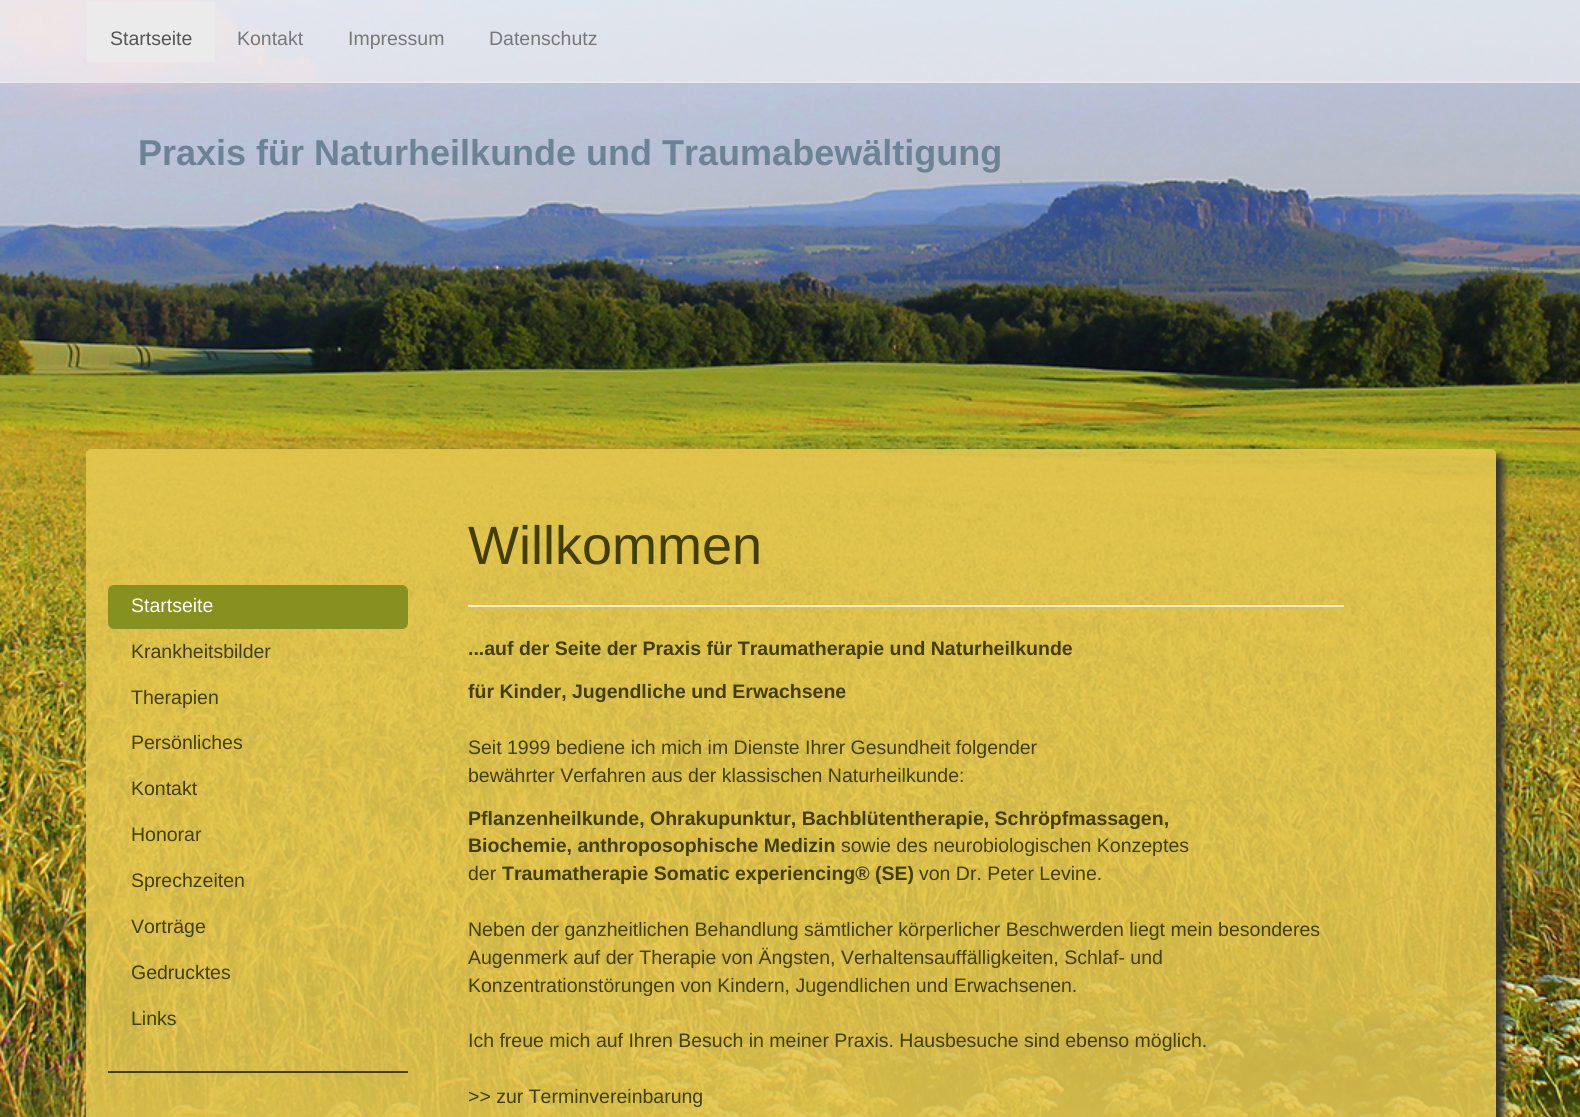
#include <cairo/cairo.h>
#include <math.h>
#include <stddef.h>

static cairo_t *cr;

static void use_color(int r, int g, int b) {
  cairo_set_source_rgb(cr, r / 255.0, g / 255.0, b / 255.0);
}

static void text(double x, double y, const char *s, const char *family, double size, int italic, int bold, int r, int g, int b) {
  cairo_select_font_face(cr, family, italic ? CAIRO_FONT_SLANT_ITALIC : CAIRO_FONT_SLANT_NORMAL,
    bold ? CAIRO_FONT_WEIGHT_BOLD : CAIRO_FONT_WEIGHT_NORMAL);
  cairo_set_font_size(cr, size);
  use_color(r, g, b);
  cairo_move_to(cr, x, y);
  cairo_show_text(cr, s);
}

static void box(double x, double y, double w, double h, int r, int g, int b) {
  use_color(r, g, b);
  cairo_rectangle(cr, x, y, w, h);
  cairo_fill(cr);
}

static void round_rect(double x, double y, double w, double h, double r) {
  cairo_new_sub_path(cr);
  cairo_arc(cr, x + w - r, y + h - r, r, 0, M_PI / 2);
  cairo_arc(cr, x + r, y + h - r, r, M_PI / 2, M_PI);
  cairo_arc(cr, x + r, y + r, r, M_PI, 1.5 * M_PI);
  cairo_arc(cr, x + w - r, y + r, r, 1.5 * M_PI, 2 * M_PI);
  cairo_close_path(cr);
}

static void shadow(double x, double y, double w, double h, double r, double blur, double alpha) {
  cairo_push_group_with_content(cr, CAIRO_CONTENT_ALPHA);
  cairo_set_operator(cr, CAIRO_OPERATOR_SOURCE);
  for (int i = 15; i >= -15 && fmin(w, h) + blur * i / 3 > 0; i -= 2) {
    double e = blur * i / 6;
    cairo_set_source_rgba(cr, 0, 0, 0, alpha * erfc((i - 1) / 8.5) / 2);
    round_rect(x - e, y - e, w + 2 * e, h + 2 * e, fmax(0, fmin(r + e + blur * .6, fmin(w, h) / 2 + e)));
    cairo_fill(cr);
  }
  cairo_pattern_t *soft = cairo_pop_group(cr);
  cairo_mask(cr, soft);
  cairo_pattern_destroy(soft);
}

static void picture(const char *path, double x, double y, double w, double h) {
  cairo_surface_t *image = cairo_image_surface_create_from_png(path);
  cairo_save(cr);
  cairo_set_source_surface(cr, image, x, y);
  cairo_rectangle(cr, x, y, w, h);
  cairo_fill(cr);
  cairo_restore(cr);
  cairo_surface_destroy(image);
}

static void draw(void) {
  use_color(255, 255, 255);
  cairo_paint(cr);
  picture("img_01.png", 0, 0, 1580, 1117);
  cairo_set_source_rgba(cr, 0.973, 0.973, 0.973, 0.56);
  cairo_rectangle(cr, 0, 0, 1580, 81);
  cairo_fill(cr);
  box(0, 81, 1580, 2, 231, 231, 231);
  box(87, 2, 128, 60, 235, 235, 235);
  cairo_save(cr);
  cairo_set_fill_rule(cr, CAIRO_FILL_RULE_EVEN_ODD);
  cairo_new_path(cr);
  cairo_move_to(cr, 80, 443);
  cairo_line_to(cr, 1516, 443);
  cairo_line_to(cr, 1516, 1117);
  cairo_line_to(cr, 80, 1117);
  cairo_close_path(cr);
  cairo_move_to(cr, 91, 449);
  cairo_line_to(cr, 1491, 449);
  cairo_curve_to(cr, 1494, 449, 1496, 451, 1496, 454);
  cairo_line_to(cr, 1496, 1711);
  cairo_curve_to(cr, 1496, 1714, 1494, 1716, 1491, 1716);
  cairo_line_to(cr, 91, 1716);
  cairo_curve_to(cr, 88, 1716, 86, 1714, 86, 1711);
  cairo_line_to(cr, 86, 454);
  cairo_curve_to(cr, 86, 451, 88, 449, 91, 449);
  cairo_close_path(cr);
  cairo_clip(cr);
  use_color(51, 51, 51);
  shadow(93, 456, 1410, 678, 5, 4, 1);
  cairo_restore(cr);
  cairo_set_source_rgba(cr, 0.902, 0.788, 0.318, 0.86);
  round_rect(86, 449, 1410, 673, 5);
  cairo_fill(cr);
  use_color(135, 145, 32);
  round_rect(108, 585, 300, 44, 6);
  cairo_fill(cr);
  box(108, 1071, 300, 2, 65, 62, 0);
  box(468, 605, 876, 2, 238, 238, 238);
  text(110, 45, "Startseite", "Liberation Sans", 19.5, 0, 0, 85, 85, 85);
  text(237, 45, "Kontakt", "Liberation Sans", 19.5, 0, 0, 119, 119, 119);
  text(348, 45, "Impressum", "Liberation Sans", 19.5, 0, 0, 119, 119, 119);
  text(489, 45, "Datenschutz", "Liberation Sans", 19.5, 0, 0, 119, 119, 119);
  text(138, 165, "Praxis für Naturheilkunde und Traumabewältigung", "Liberation Sans", 36, 0, 1, 109, 130, 149);
  text(131, 612, "Startseite", "Liberation Sans", 19.5, 0, 0, 255, 255, 255);
  text(131, 658, "Krankheitsbilder", "Liberation Sans", 19.5, 0, 0, 65, 62, 0);
  text(131, 704, "Therapien", "Liberation Sans", 19.5, 0, 0, 65, 62, 0);
  text(131, 749, "Persönliches", "Liberation Sans", 19.5, 0, 0, 65, 62, 0);
  text(131, 795, "Kontakt", "Liberation Sans", 19.5, 0, 0, 65, 62, 0);
  text(131, 841, "Honorar", "Liberation Sans", 19.5, 0, 0, 65, 62, 0);
  text(131, 887, "Sprechzeiten", "Liberation Sans", 19.5, 0, 0, 65, 62, 0);
  text(131, 933, "Vorträge", "Liberation Sans", 19.5, 0, 0, 65, 62, 0);
  text(131, 979, "Gedrucktes", "Liberation Sans", 19.5, 0, 0, 65, 62, 0);
  text(131, 1025, "Links", "Liberation Sans", 19.5, 0, 0, 65, 62, 0);
  text(468, 564, "Willkommen", "Liberation Sans", 54, 0, 0, 65, 62, 0);
  text(468, 655, "...auf der Seite der Praxis für Traumatherapie und Naturheilkunde", "Liberation Sans", 19.5, 0, 1, 65, 62, 0);
  text(468, 698, "für Kinder, Jugendliche und Erwachsene", "Liberation Sans", 19.5, 0, 1, 65, 62, 0);
  text(468, 754, "Seit 1999 bediene ich mich im Dienste Ihrer Gesundheit folgender", "Liberation Sans", 19.5, 0, 0, 65, 62, 0);
  text(468, 782, "bewährter Verfahren aus der klassischen Naturheilkunde:", "Liberation Sans", 19.5, 0, 0, 65, 62, 0);
  text(468, 825, "Pflanzenheilkunde, Ohrakupunktur, Bachblütentherapie, Schröpfmassagen,", "Liberation Sans", 19.5, 0, 1, 65, 62, 0);
  text(468, 852, "Biochemie, anthroposophische Medizin", "Liberation Sans", 19.5, 0, 1, 65, 62, 0);
  text(841, 852, "sowie des neurobiologischen Konzeptes", "Liberation Sans", 19.5, 0, 0, 65, 62, 0);
  text(468, 880, "der", "Liberation Sans", 19.5, 0, 0, 65, 62, 0);
  text(502, 880, "Traumatherapie Somatic experiencing® (SE)", "Liberation Sans", 19.5, 0, 1, 65, 62, 0);
  text(919, 880, "von Dr. Peter Levine.", "Liberation Sans", 19.5, 0, 0, 65, 62, 0);
  text(468, 936, "Neben der ganzheitlichen Behandlung sämtlicher körperlicher Beschwerden liegt mein besonderes", "Liberation Sans", 19.5, 0, 0, 65, 62, 0);
  text(468, 964, "Augenmerk auf der Therapie von Ängsten, Verhaltensauffälligkeiten, Schlaf- und", "Liberation Sans", 19.5, 0, 0, 65, 62, 0);
  text(468, 992, "Konzentrationstörungen von Kindern, Jugendlichen und Erwachsenen.", "Liberation Sans", 19.5, 0, 0, 65, 62, 0);
  text(468, 1047, "Ich freue mich auf Ihren Besuch in meiner Praxis. Hausbesuche sind ebenso möglich.", "Liberation Sans", 19.5, 0, 0, 65, 62, 0);
  text(468, 1103, ">> zur Terminvereinbarung", "Liberation Sans", 19.5, 0, 0, 65, 62, 0);
}

int main(void) {
  cairo_surface_t *surface = cairo_image_surface_create(CAIRO_FORMAT_RGB24, 1580, 1117);
  cr = cairo_create(surface);
  cairo_font_options_t *options = cairo_font_options_create();
  cairo_font_options_set_hint_metrics(options, CAIRO_HINT_METRICS_OFF);
  cairo_font_options_set_hint_style(options, CAIRO_HINT_STYLE_NONE);
  cairo_set_font_options(cr, options);
  cairo_set_miter_limit(cr, 4);
  draw();
  cairo_surface_write_to_png(surface, "out.png");
  cairo_font_options_destroy(options);
  cairo_destroy(cr);
  cairo_surface_destroy(surface);
  return 0;
}
